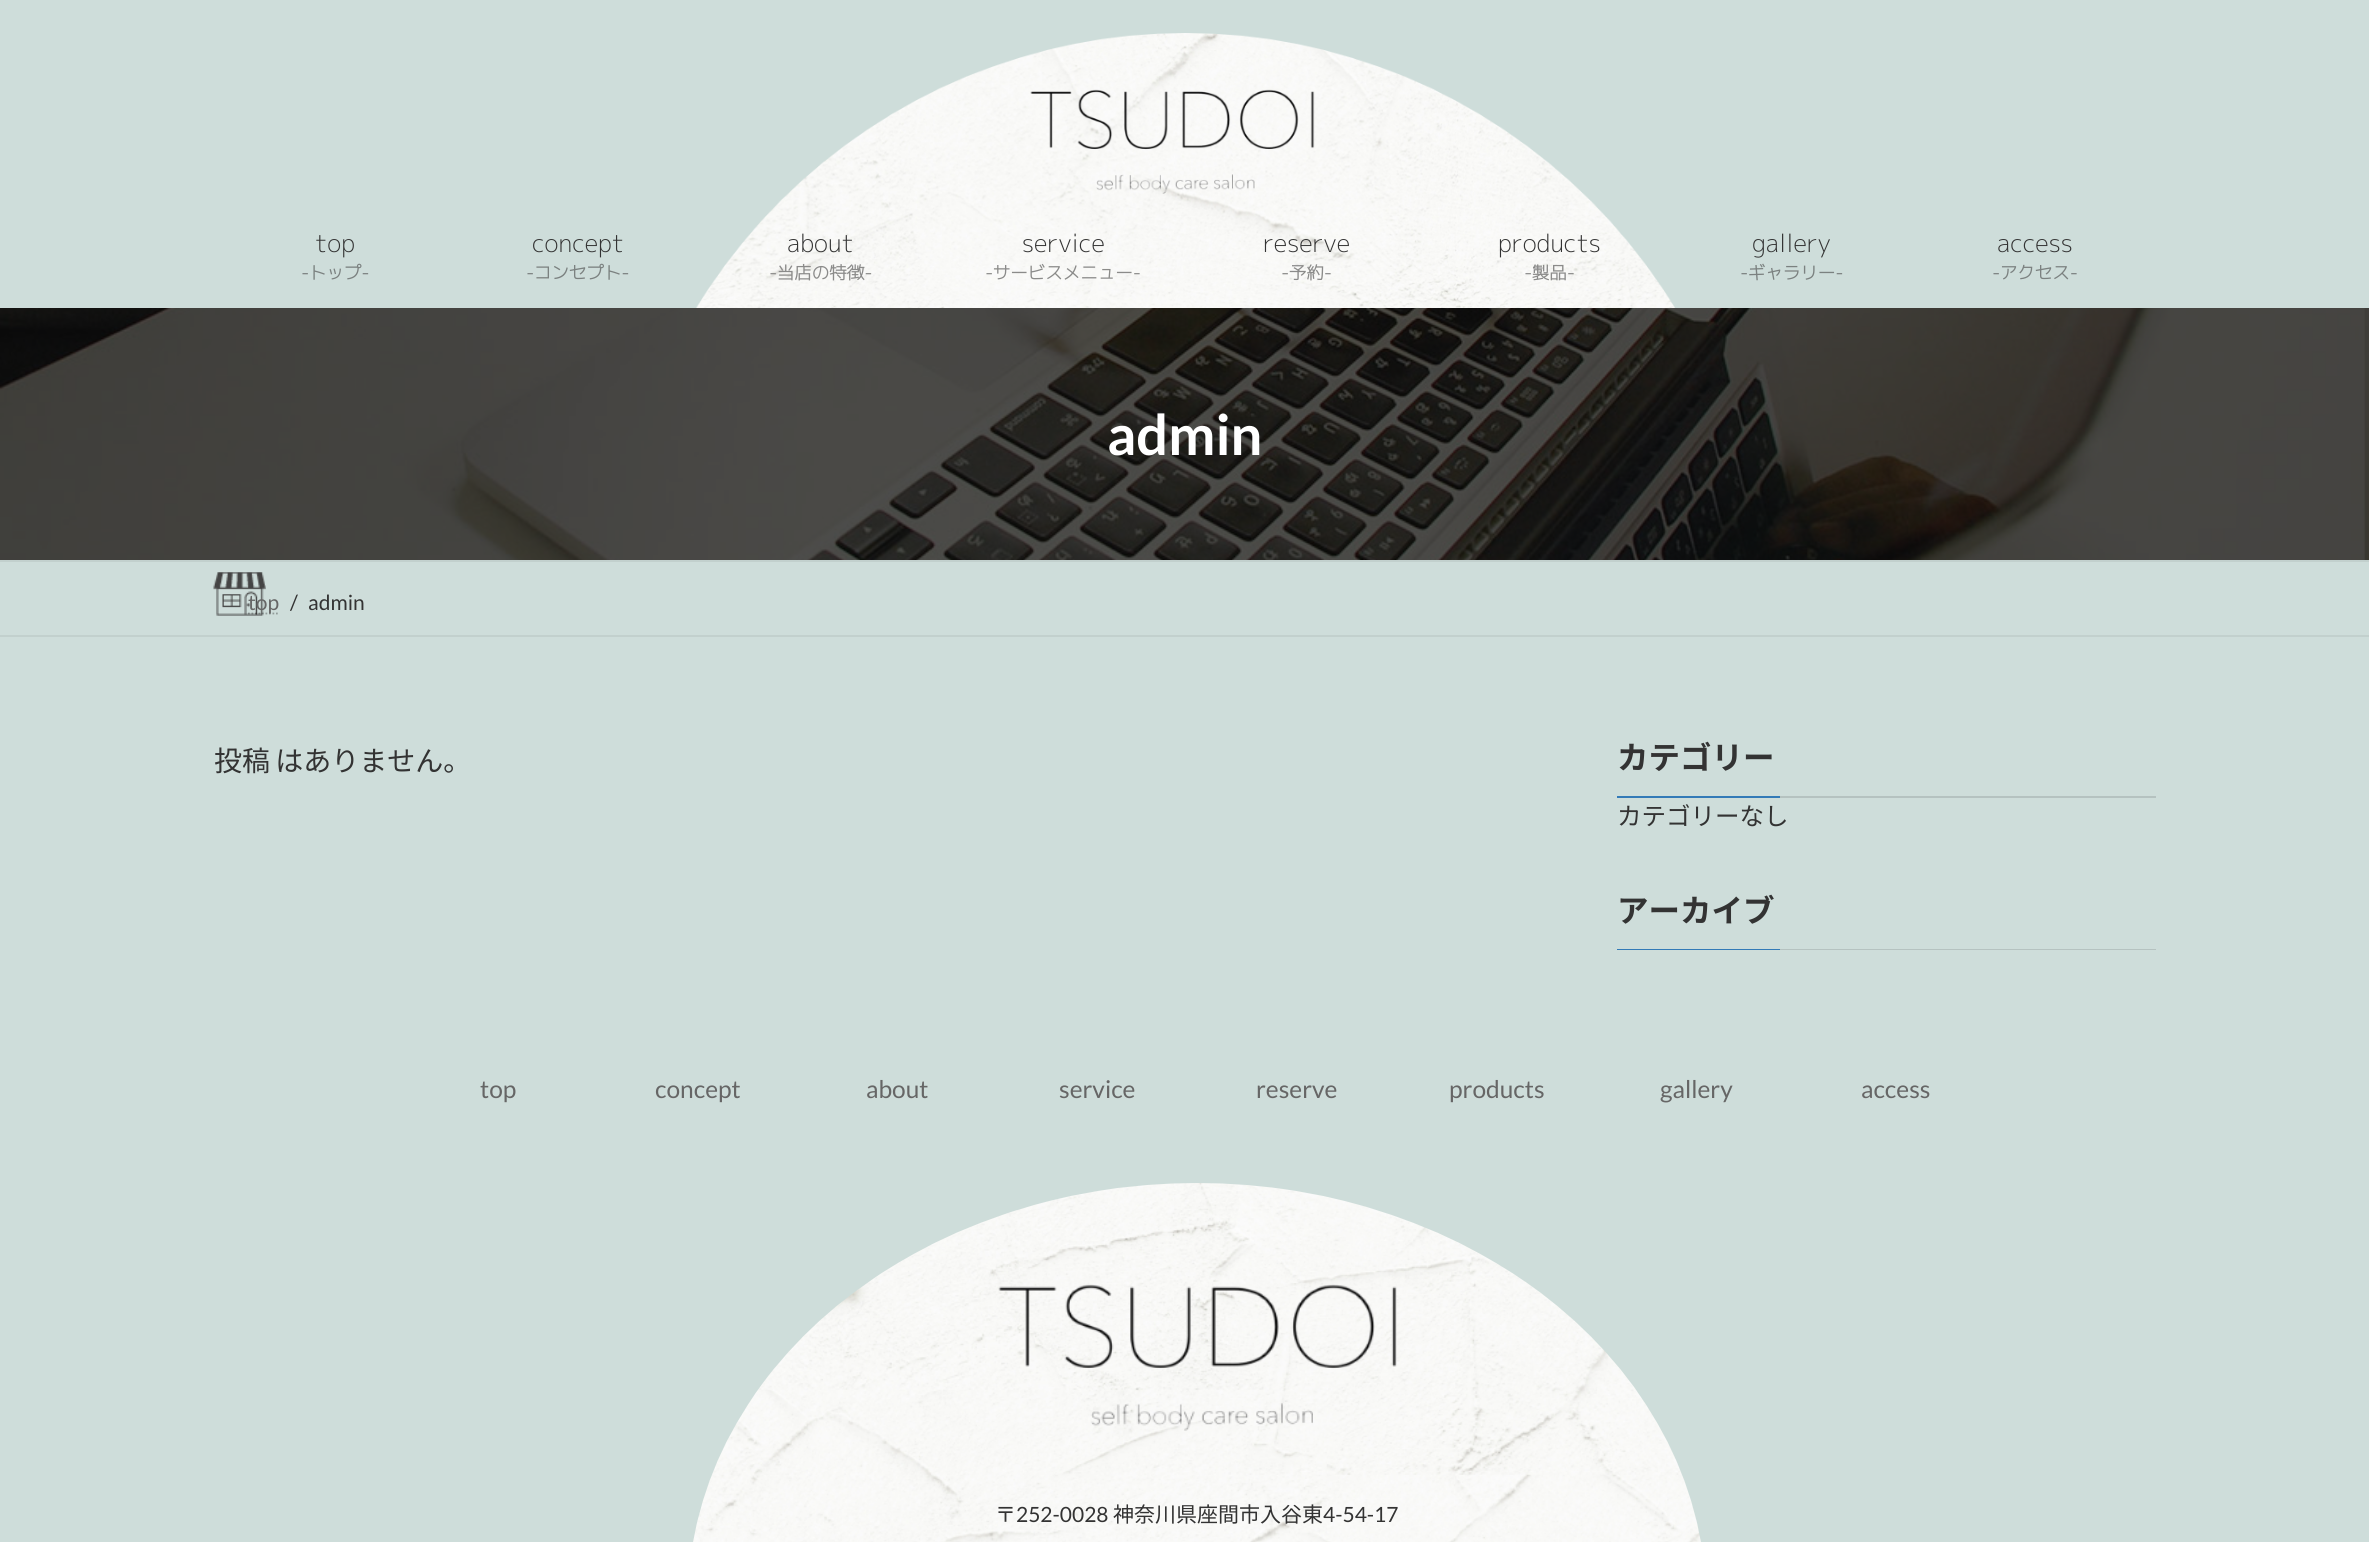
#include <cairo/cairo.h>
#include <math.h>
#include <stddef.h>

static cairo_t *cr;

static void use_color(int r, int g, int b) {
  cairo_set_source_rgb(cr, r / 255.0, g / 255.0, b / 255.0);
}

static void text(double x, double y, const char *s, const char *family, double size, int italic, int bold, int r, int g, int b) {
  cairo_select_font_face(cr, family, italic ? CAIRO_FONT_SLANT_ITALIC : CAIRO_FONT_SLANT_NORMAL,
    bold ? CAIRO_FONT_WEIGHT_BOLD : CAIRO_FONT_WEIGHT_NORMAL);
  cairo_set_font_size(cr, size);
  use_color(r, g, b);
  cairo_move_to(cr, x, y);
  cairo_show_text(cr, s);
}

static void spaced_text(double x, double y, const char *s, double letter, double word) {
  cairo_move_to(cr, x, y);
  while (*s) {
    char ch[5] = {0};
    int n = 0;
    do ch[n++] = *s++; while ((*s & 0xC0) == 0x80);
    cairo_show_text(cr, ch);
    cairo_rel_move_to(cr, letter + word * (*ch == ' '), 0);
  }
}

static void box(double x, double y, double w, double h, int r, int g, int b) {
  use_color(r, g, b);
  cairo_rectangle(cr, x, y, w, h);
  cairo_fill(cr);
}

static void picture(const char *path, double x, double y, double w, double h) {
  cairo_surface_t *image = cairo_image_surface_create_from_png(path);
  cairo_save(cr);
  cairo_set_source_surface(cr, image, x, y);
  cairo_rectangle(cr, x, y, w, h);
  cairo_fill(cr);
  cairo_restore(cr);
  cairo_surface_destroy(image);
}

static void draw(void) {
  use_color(206, 221, 218);
  cairo_paint(cr);
  picture("img_01.png", 696, 33, 979, 275);
  picture("img_02.png", 1030, 89, 285, 105);
  picture("img_03.png", 0, 308, 2369, 252);
  box(0, 560, 2369, 2, 194, 208, 205);
  box(0, 635, 2369, 2, 194, 208, 205);
  picture("img_04.png", 213, 572, 53, 44);
  cairo_new_path(cr);
  cairo_move_to(cr, 248, 613.5);
  cairo_line_to(cr, 279.5, 613.5);
  cairo_set_source_rgba(cr, 0, 0, 0, 0.3);
  cairo_set_line_width(cr, 1.8);
  cairo_set_dash(cr, (double[]){1.75, 1.75}, 2, 0);
  cairo_stroke(cr);
  box(1780, 796, 376, 2, 181, 194, 192);
  box(1617, 796, 163, 2, 51, 122, 183);
  box(1780, 949, 376, 1, 181, 194, 192);
  box(1617, 949, 163, 1, 51, 122, 183);
  picture("img_05.png", 693, 1183, 1008, 359);
  picture("img_06.png", 998, 1284, 399, 147);
  text(315, 252, "top", "M PLUS 1p Light", 24.5, 0, 0, 51, 51, 51);
  text(301, 279, "-トップ-", "M PLUS 1p", 17.5, 0, 1, 123, 129, 128);
  text(532, 252, "concept", "M PLUS 1p Light", 24.5, 0, 0, 51, 51, 51);
  text(526, 279, "-コンセプト-", "M PLUS 1p", 17.5, 0, 1, 123, 129, 128);
  text(787, 252, "about", "M PLUS 1p Light", 24.5, 0, 0, 51, 51, 51);
  text(769, 279, "-当店の特徴-", "M PLUS 1p", 17.5, 0, 1, 139, 139, 138);
  text(1022, 252, "service", "M PLUS 1p Light", 24.5, 0, 0, 51, 51, 51);
  text(985, 279, "-サービスメニュー-", "M PLUS 1p", 17.5, 0, 1, 139, 139, 138);
  text(1263, 252, "reserve", "M PLUS 1p Light", 24.5, 0, 0, 51, 51, 51);
  text(1281, 279, "-予約-", "M PLUS 1p", 17.5, 0, 1, 139, 139, 138);
  text(1498, 252, "products", "M PLUS 1p Light", 24.5, 0, 0, 51, 51, 51);
  text(1524, 279, "-製品-", "M PLUS 1p", 17.5, 0, 1, 139, 139, 138);
  text(1752, 252, "gallery", "M PLUS 1p Light", 24.5, 0, 0, 51, 51, 51);
  text(1740, 279, "-ギャラリー-", "M PLUS 1p", 17.5, 0, 1, 123, 129, 128);
  text(1997, 252, "access", "M PLUS 1p Light", 24.5, 0, 0, 51, 51, 51);
  text(1992, 279, "-アクセス-", "M PLUS 1p", 17.5, 0, 1, 123, 129, 128);
  text(1107, 455, "admin", "Lato", 56, 0, 1, 255, 255, 255);
  text(248, 610, "top", "Lato", 21, 0, 0, 102, 102, 102);
  text(290, 610, "/", "Lato", 21, 0, 0, 51, 51, 51);
  text(308, 610, "admin", "Lato", 21, 0, 0, 51, 51, 51);
  cairo_select_font_face(cr, "Noto Sans JP", CAIRO_FONT_SLANT_NORMAL, CAIRO_FONT_WEIGHT_NORMAL);
  cairo_set_font_size(cr, 28);
  spaced_text(214, 771, "投稿 はありません。", 0, -1);
  text(1617, 769, "カテゴリー", "Noto Sans JP", 31.5, 0, 1, 51, 51, 51);
  text(1617, 825, "カテゴリーなし", "Noto Sans JP", 24.5, 0, 0, 51, 51, 51);
  text(1617, 922, "アーカイブ", "Noto Sans JP", 31.5, 0, 1, 51, 51, 51);
  text(480, 1098, "top", "Lato", 24.5, 0, 0, 102, 102, 102);
  text(655, 1098, "concept", "Lato", 24.5, 0, 0, 102, 102, 102);
  text(866, 1098, "about", "Lato", 24.5, 0, 0, 102, 102, 102);
  text(1059, 1098, "service", "Lato", 24.5, 0, 0, 102, 102, 102);
  text(1256, 1098, "reserve", "Lato", 24.5, 0, 0, 102, 102, 102);
  text(1449, 1098, "products", "Lato", 24.5, 0, 0, 102, 102, 102);
  text(1660, 1098, "gallery", "Lato", 24.5, 0, 0, 102, 102, 102);
  text(1861, 1098, "access", "Lato", 24.5, 0, 0, 102, 102, 102);
  text(995, 1522, "〒", "Noto Sans JP", 21, 0, 0, 51, 51, 51);
  text(1016, 1522, "252-0028", "Lato", 21, 0, 0, 51, 51, 51);
  text(1113, 1522, "神奈川県座間市入谷東", "Noto Sans JP", 21, 0, 0, 51, 51, 51);
  text(1323, 1522, "4-54-17", "Lato", 21, 0, 0, 51, 51, 51);
}

int main(void) {
  cairo_surface_t *surface = cairo_image_surface_create(CAIRO_FORMAT_RGB24, 2369, 1542);
  cr = cairo_create(surface);
  cairo_font_options_t *options = cairo_font_options_create();
  cairo_font_options_set_hint_metrics(options, CAIRO_HINT_METRICS_OFF);
  cairo_font_options_set_hint_style(options, CAIRO_HINT_STYLE_NONE);
  cairo_set_font_options(cr, options);
  cairo_set_miter_limit(cr, 4);
  draw();
  cairo_surface_write_to_png(surface, "out.png");
  cairo_font_options_destroy(options);
  cairo_destroy(cr);
  cairo_surface_destroy(surface);
  return 0;
}
